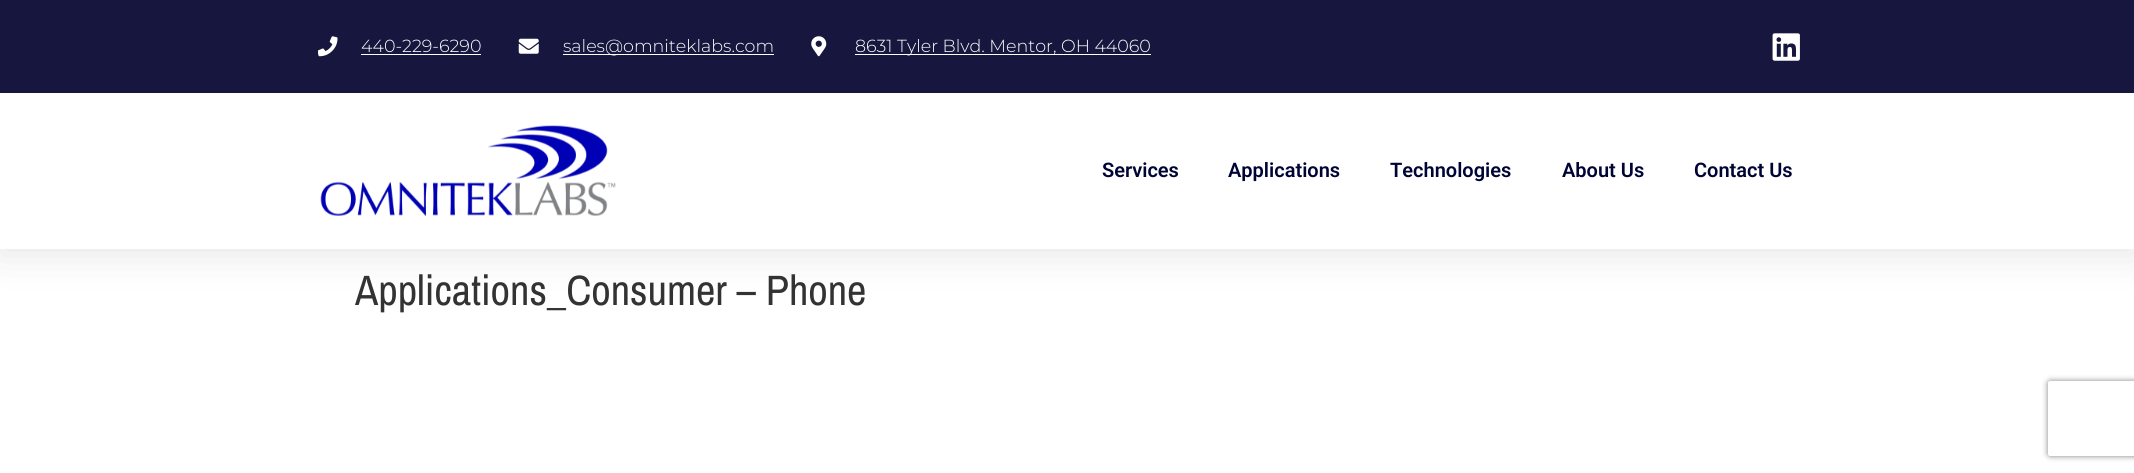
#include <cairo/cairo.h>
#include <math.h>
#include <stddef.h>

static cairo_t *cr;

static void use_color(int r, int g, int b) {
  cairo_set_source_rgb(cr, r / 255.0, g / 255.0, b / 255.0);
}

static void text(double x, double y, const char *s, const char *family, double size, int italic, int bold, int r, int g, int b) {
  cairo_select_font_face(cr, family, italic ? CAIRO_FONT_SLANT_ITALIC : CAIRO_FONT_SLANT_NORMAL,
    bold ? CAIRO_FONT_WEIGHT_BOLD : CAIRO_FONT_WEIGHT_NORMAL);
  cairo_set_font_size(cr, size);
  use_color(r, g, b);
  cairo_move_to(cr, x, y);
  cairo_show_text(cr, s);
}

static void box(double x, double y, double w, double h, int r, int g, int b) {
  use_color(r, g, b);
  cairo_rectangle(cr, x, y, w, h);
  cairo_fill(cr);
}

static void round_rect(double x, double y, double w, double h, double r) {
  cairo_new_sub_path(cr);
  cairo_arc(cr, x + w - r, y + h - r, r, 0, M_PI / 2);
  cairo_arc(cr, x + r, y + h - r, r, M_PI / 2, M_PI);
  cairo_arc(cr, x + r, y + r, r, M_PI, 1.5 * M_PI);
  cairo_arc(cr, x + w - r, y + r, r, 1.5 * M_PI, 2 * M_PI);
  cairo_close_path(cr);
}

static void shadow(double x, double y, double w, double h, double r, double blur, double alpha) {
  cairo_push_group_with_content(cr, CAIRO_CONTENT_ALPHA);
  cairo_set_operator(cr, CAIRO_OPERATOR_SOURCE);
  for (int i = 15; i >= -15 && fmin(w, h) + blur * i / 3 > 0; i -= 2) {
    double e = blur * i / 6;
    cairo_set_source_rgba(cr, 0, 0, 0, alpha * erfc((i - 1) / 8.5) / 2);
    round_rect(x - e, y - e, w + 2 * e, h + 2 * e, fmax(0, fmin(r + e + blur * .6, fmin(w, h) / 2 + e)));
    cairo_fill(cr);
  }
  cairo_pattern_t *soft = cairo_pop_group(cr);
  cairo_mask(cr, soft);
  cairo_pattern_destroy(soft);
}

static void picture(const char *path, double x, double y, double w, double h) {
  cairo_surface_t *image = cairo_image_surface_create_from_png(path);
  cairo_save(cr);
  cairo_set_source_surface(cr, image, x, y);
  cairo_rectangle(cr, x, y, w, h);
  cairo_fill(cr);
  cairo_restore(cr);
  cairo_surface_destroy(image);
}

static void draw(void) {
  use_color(255, 255, 255);
  cairo_paint(cr);
  use_color(0, 0, 0);
  shadow(0, 6, 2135, 249, 0, 19, 0.1);
  box(0, 93, 2134, 156, 255, 255, 255);
  box(0, 0, 2134, 93, 22, 22, 63);
  picture("img_01.png", 318, 36, 20, 21);
  box(361, 54, 120, 1, 255, 255, 255);
  picture("img_02.png", 518, 38, 21, 16);
  box(563, 54, 211, 1, 255, 255, 255);
  picture("img_03.png", 811, 36, 16, 21);
  box(855, 54, 296, 1, 255, 255, 255);
  picture("img_04.png", 1772, 33, 28, 28);
  picture("img_05.png", 320, 125, 296, 91);
  cairo_save(cr);
  cairo_set_fill_rule(cr, CAIRO_FILL_RULE_EVEN_ODD);
  cairo_new_path(cr);
  cairo_move_to(cr, 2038, 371);
  cairo_line_to(cr, 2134, 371);
  cairo_line_to(cr, 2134, 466);
  cairo_line_to(cr, 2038, 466);
  cairo_close_path(cr);
  cairo_move_to(cr, 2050.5, 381);
  cairo_line_to(cr, 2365.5, 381);
  cairo_curve_to(cr, 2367, 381, 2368, 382, 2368, 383.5);
  cairo_line_to(cr, 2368, 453.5);
  cairo_curve_to(cr, 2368, 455, 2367, 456, 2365.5, 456);
  cairo_line_to(cr, 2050.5, 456);
  cairo_curve_to(cr, 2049, 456, 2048, 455, 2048, 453.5);
  cairo_line_to(cr, 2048, 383.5);
  cairo_curve_to(cr, 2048, 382, 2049, 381, 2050.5, 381);
  cairo_close_path(cr);
  cairo_clip(cr);
  use_color(128, 128, 128);
  shadow(2048, 381, 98, 75, 2.5, 3, 1);
  cairo_restore(cr);
  text(361, 52, "440-229-6290", "Montserrat Light", 17.5, 0, 0, 255, 255, 255);
  text(563, 52, "sales@omniteklabs.com", "Montserrat Light", 17.5, 0, 0, 255, 255, 255);
  text(855, 52, "8631 Tyler Blvd. Mentor, OH 44060", "Montserrat Light", 17.5, 0, 0, 255, 255, 255);
  text(1102, 177, "Services", "Roboto SemiBold", 20, 0, 0, 0, 4, 52);
  text(1228, 177, "Applications", "Roboto SemiBold", 20, 0, 0, 0, 4, 52);
  text(1390, 177, "Technologies", "Roboto SemiBold", 20, 0, 0, 0, 4, 52);
  text(1562, 177, "About Us", "Roboto SemiBold", 20, 0, 0, 0, 4, 52);
  text(1694, 177, "Contact Us", "Roboto SemiBold", 20, 0, 0, 0, 4, 52);
  text(355, 305, "Applications_Consumer – Phone", "Archivo Narrow", 42.5, 0, 0, 51, 51, 51);
}

int main(void) {
  cairo_surface_t *surface = cairo_image_surface_create(CAIRO_FORMAT_RGB24, 2134, 473);
  cr = cairo_create(surface);
  cairo_font_options_t *options = cairo_font_options_create();
  cairo_font_options_set_hint_metrics(options, CAIRO_HINT_METRICS_OFF);
  cairo_font_options_set_hint_style(options, CAIRO_HINT_STYLE_NONE);
  cairo_set_font_options(cr, options);
  cairo_set_miter_limit(cr, 4);
  draw();
  cairo_surface_write_to_png(surface, "out.png");
  cairo_font_options_destroy(options);
  cairo_destroy(cr);
  cairo_surface_destroy(surface);
  return 0;
}
